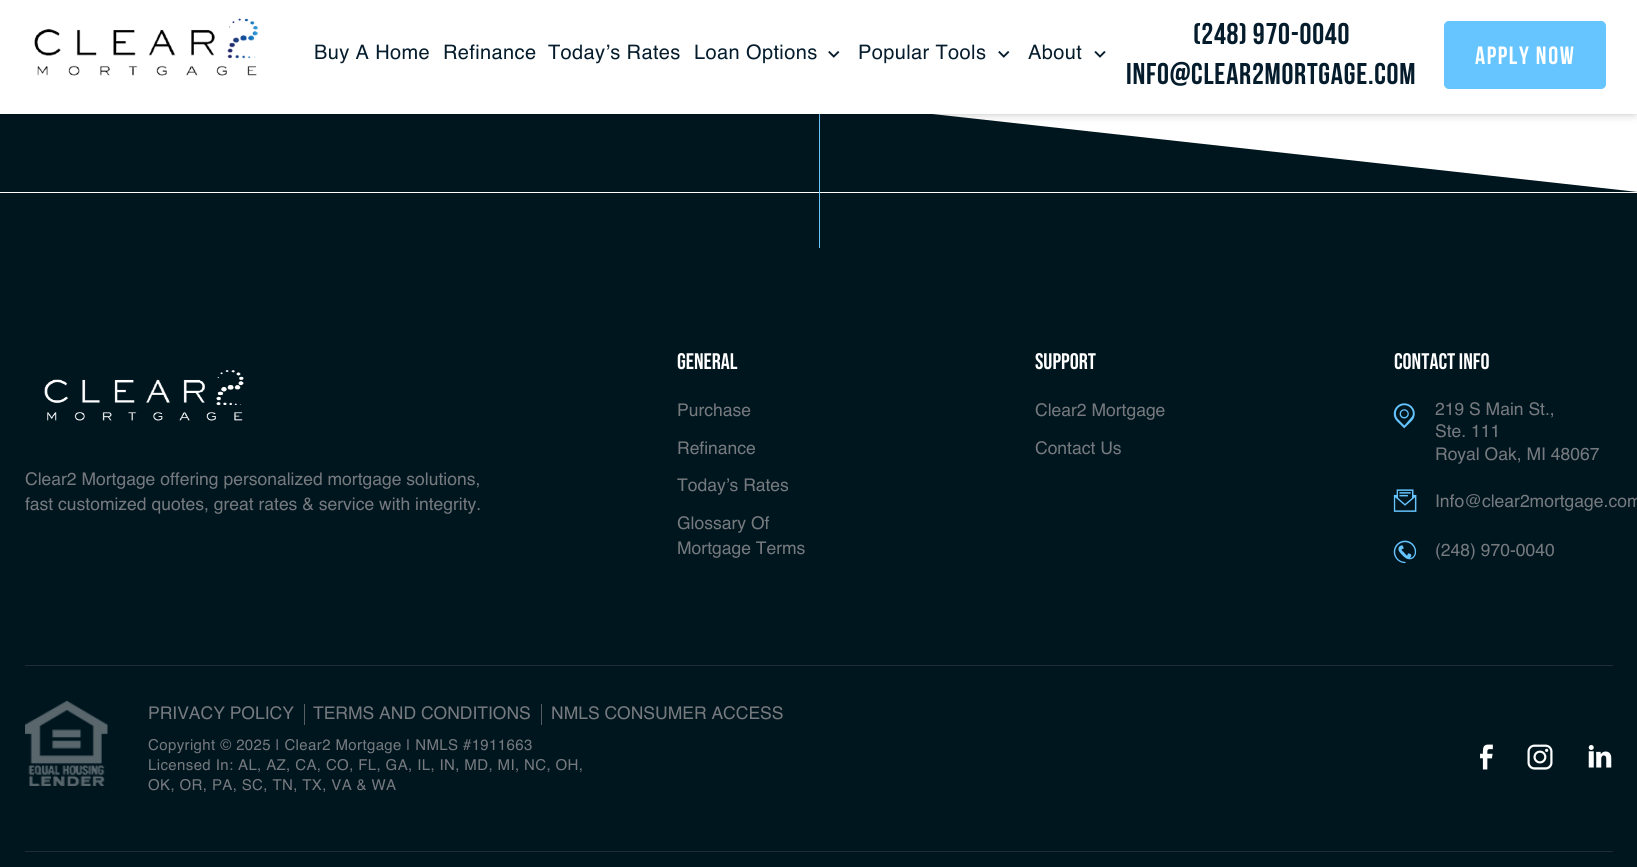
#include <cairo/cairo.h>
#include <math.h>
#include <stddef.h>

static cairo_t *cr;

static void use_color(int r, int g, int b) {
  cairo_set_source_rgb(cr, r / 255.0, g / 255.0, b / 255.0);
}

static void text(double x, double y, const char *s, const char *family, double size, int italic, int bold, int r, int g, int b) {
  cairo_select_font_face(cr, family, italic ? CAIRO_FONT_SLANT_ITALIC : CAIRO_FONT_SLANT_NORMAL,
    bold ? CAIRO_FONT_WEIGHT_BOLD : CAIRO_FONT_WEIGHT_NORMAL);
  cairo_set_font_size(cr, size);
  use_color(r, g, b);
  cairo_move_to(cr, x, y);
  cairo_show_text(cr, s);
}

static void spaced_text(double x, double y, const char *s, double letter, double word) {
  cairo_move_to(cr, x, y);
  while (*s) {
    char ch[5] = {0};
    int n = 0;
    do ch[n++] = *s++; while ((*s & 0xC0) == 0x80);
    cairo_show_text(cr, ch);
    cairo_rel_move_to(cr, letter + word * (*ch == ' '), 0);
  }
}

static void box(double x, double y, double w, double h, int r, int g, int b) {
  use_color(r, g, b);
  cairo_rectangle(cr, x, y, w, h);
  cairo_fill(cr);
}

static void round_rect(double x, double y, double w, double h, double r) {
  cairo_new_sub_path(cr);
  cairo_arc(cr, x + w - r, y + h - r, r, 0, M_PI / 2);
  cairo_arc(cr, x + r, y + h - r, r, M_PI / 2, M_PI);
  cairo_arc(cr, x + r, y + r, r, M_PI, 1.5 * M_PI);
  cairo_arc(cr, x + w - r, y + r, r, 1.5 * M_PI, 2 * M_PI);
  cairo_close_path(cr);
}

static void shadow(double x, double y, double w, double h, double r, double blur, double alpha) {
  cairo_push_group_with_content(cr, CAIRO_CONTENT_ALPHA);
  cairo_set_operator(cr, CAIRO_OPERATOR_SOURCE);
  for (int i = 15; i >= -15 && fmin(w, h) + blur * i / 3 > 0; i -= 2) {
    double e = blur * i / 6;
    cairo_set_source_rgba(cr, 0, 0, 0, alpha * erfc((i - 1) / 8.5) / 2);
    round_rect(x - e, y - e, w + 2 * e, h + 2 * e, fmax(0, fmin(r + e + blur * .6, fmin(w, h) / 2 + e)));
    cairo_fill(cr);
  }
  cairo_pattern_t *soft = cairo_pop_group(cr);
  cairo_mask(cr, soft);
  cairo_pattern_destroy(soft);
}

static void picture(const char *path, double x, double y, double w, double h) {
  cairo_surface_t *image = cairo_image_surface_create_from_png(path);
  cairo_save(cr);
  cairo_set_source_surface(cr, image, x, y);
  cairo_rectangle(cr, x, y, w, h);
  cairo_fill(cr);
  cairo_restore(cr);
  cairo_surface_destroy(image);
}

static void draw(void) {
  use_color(255, 255, 255);
  cairo_paint(cr);
  use_color(0, 22, 31);
  cairo_new_path(cr);
  cairo_move_to(cr, 0, 192);
  cairo_line_to(cr, 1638, 192);
  cairo_line_to(cr, 0, 11);
  cairo_close_path(cr);
  cairo_fill(cr);
  box(0, 193, 1637, 674, 0, 22, 31);
  box(819, 114, 1, 134, 102, 196, 255);
  use_color(0, 0, 0);
  shadow(4, 4, 1630, 106, 0, 6, 0.5);
  box(0, 0, 1637, 114, 255, 255, 255);
  picture("img_01.png", 34, 18, 224, 58);
  picture("img_02.png", 828, 51, 12, 7);
  picture("img_02.png", 998, 51, 12, 7);
  picture("img_03.png", 1094, 51, 12, 7);
  use_color(102, 196, 255);
  round_rect(1444.5, 21.5, 161, 67, 4.5);
  cairo_fill_preserve(cr);
  cairo_set_line_width(cr, 1);
  cairo_stroke(cr);
  picture("img_04.png", 44, 370, 200, 51);
  picture("img_05.png", 1393, 403, 22, 26);
  picture("img_06.png", 1393, 489, 24, 23);
  picture("img_07.png", 1393, 540, 24, 24);
  box(25, 665, 1588, 1, 32, 44, 60);
  picture("img_08.png", 25, 701, 83, 85);
  box(304, 704, 1, 21, 87, 95, 101);
  box(541, 704, 1, 21, 87, 95, 101);
  picture("img_09.png", 1480, 744, 13, 26);
  picture("img_10.png", 1527, 744, 26, 26);
  picture("img_11.png", 1588, 745, 24, 23);
  box(25, 851, 1588, 1, 32, 44, 60);
  cairo_select_font_face(cr, "Helvetica", CAIRO_FONT_SLANT_NORMAL, CAIRO_FONT_WEIGHT_NORMAL);
  cairo_set_font_size(cr, 20);
  use_color(5, 28, 44);
  spaced_text(314, 59, "Buy A Home", 0.38, 0);
  spaced_text(443, 59, "Refinance", 0.38, 0);
  spaced_text(548, 59, "Today’s Rates", 0.38, 0);
  spaced_text(694, 59, "Loan Options", 0.38, 0);
  spaced_text(858, 59, "Popular Tools", 0.38, 0);
  spaced_text(1028, 59, "About", 0.38, 0);
  cairo_select_font_face(cr, "Bebas Neue", CAIRO_FONT_SLANT_NORMAL, CAIRO_FONT_WEIGHT_BOLD);
  cairo_set_font_size(cr, 30);
  spaced_text(1193, 44, "(248) 970-0040", 0.75, 0);
  spaced_text(1126, 84, "info@clear2mortgage.com", 0.75, 0);
  cairo_set_font_size(cr, 25);
  use_color(255, 255, 255);
  spaced_text(1475, 64, "apply now", 1.6, 0);
  text(25, 485, "Clear2 Mortgage offering personalized mortgage solutions,", "Helvetica", 17.5, 0, 0, 118, 121, 126);
  text(25, 510, "fast customized quotes, great rates & service with integrity.", "Helvetica", 17.5, 0, 0, 118, 121, 126);
  text(677, 369, "general", "Bebas Neue", 22.5, 0, 0, 255, 255, 255);
  text(677, 416, "Purchase", "Helvetica", 17.5, 0, 0, 118, 121, 126);
  text(677, 454, "Refinance", "Helvetica", 17.5, 0, 0, 118, 121, 126);
  text(677, 491, "Today’s Rates", "Helvetica", 17.5, 0, 0, 118, 121, 126);
  text(677, 529, "Glossary Of", "Helvetica", 17.5, 0, 0, 118, 121, 126);
  text(677, 554, "Mortgage Terms", "Helvetica", 17.5, 0, 0, 118, 121, 126);
  text(1035, 369, "Support", "Bebas Neue", 22.5, 0, 0, 255, 255, 255);
  text(1035, 416, "Clear2 Mortgage", "Helvetica", 17.5, 0, 0, 118, 121, 126);
  text(1035, 454, "Contact Us", "Helvetica", 17.5, 0, 0, 118, 121, 126);
  text(1394, 369, "Contact Info", "Bebas Neue", 22.5, 0, 0, 255, 255, 255);
  text(1435, 415, "219 S Main St.,", "Helvetica", 17.5, 0, 0, 118, 121, 126);
  text(1435, 437, "Ste. 111", "Helvetica", 17.5, 0, 0, 118, 121, 126);
  text(1435, 460, "Royal Oak, MI 48067", "Helvetica", 17.5, 0, 0, 118, 121, 126);
  text(1435, 507, "Info@clear2mortgage.com", "Helvetica", 17.5, 0, 0, 118, 121, 126);
  text(1435, 556, "(248) 970-0040", "Helvetica", 17.5, 0, 0, 118, 121, 126);
  text(148, 719, "PRIVACY POLICY", "Helvetica", 17.5, 0, 0, 118, 121, 126);
  text(313, 719, "TERMS AND CONDITIONS", "Helvetica", 17.5, 0, 0, 118, 121, 126);
  text(551, 719, "NMLS CONSUMER ACCESS", "Helvetica", 17.5, 0, 0, 118, 121, 126);
  cairo_set_font_size(cr, 15);
  spaced_text(148, 750, "Copyright © 2025 | Clear2 Mortgage | NMLS #1911663", 0.38, 0);
  spaced_text(148, 770, "Licensed In: AL, AZ, CA, CO, FL, GA, IL, IN, MD, MI, NC, OH,", 0.38, 0);
  spaced_text(148, 790, "OK, OR, PA, SC, TN, TX, VA & WA", 0.38, 0);
}

int main(void) {
  cairo_surface_t *surface = cairo_image_surface_create(CAIRO_FORMAT_RGB24, 1637, 867);
  cr = cairo_create(surface);
  cairo_font_options_t *options = cairo_font_options_create();
  cairo_font_options_set_hint_metrics(options, CAIRO_HINT_METRICS_OFF);
  cairo_font_options_set_hint_style(options, CAIRO_HINT_STYLE_NONE);
  cairo_set_font_options(cr, options);
  cairo_set_miter_limit(cr, 4);
  draw();
  cairo_surface_write_to_png(surface, "out.png");
  cairo_font_options_destroy(options);
  cairo_destroy(cr);
  cairo_surface_destroy(surface);
  return 0;
}
